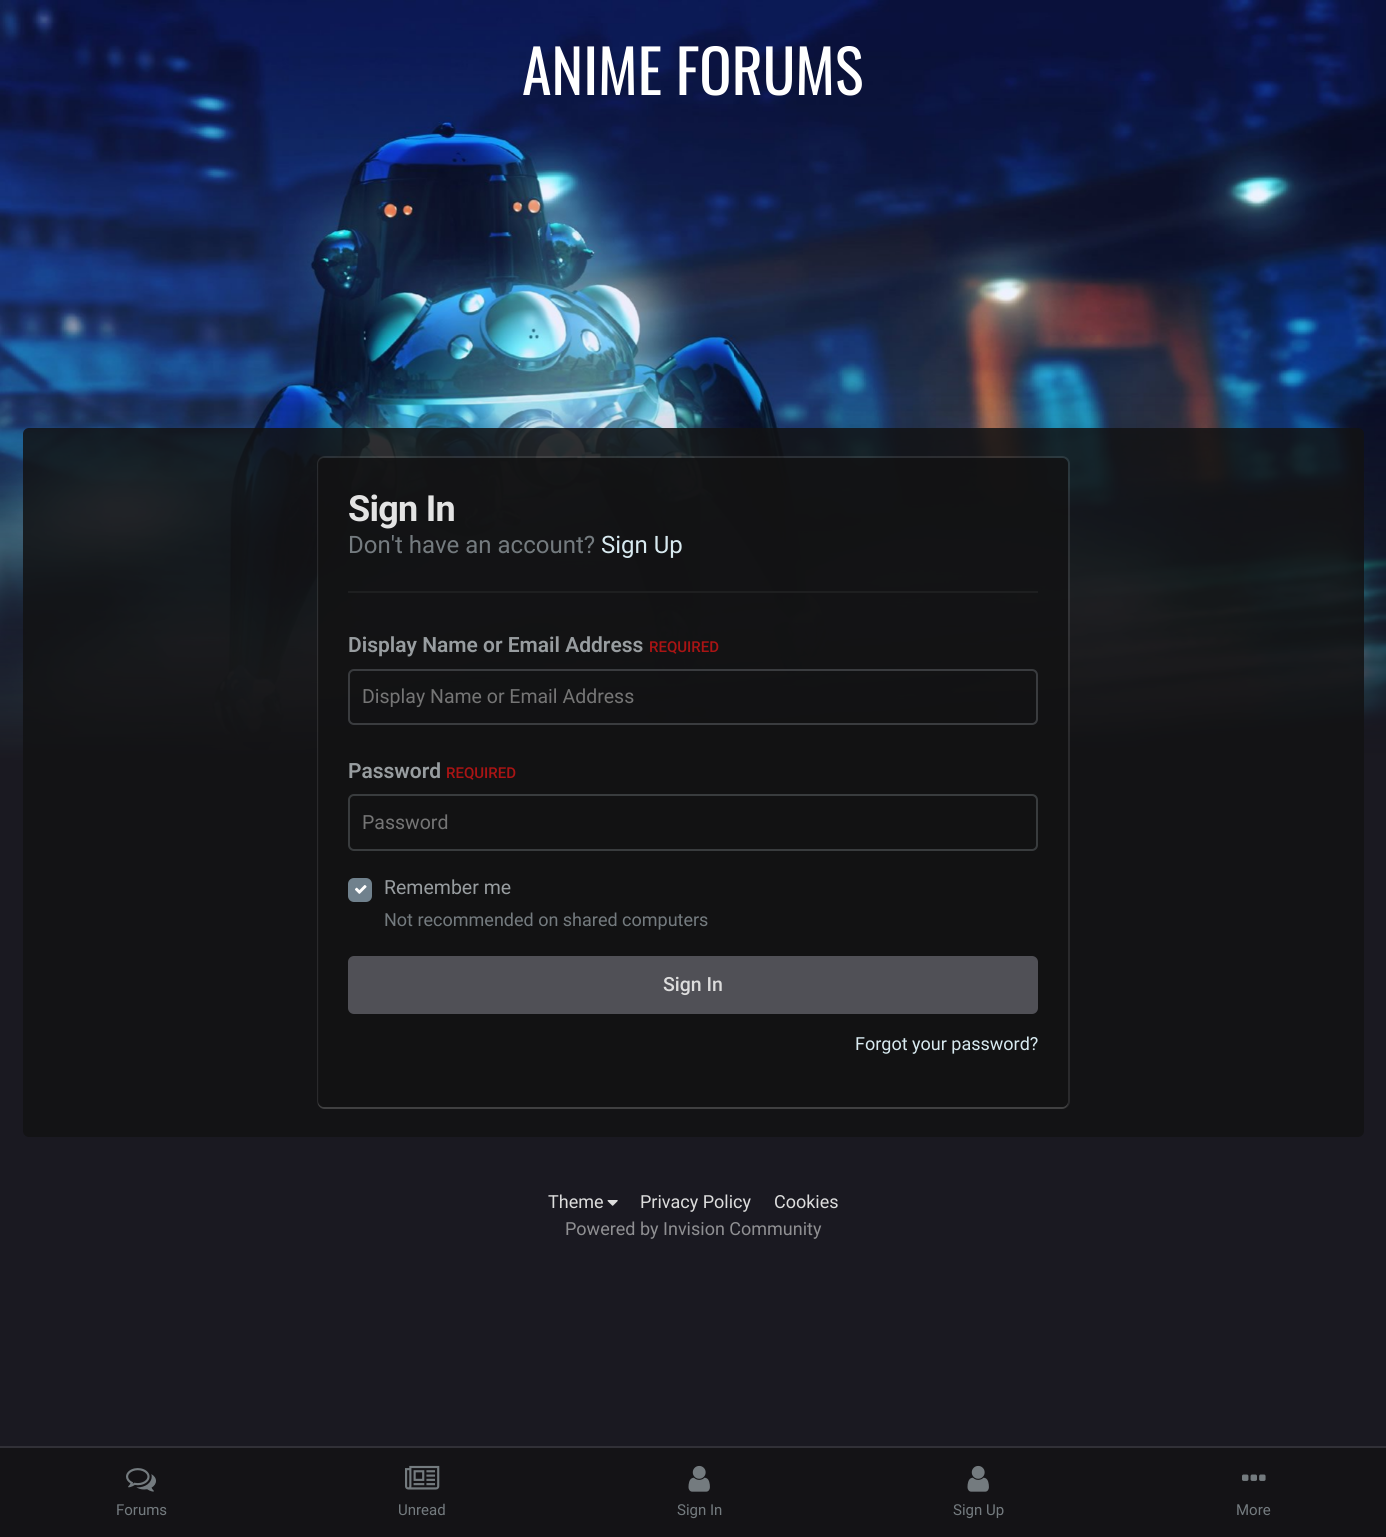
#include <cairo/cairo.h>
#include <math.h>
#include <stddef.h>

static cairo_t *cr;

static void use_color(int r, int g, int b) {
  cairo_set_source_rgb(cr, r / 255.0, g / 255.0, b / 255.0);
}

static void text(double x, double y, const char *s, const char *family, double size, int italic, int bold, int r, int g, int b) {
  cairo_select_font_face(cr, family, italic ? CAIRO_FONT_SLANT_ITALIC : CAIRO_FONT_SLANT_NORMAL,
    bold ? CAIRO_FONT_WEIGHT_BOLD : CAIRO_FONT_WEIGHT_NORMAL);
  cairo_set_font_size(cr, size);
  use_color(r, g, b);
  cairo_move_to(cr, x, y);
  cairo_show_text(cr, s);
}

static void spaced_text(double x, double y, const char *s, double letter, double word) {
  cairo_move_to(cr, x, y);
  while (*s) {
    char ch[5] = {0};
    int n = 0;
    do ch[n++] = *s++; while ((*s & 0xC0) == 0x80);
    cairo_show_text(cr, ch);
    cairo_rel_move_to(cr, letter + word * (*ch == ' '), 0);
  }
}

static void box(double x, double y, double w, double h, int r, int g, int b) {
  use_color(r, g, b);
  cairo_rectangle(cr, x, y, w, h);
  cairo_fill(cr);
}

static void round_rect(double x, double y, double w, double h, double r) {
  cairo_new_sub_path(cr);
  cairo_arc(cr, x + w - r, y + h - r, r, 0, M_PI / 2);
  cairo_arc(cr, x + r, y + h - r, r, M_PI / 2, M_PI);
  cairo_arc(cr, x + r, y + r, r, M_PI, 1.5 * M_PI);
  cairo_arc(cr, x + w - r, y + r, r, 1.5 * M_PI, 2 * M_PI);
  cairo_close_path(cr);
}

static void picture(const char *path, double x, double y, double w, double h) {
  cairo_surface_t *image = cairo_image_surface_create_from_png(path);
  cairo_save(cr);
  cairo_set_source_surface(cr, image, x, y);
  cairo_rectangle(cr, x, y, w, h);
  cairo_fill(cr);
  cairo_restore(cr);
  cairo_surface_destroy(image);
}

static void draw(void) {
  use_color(26, 25, 33);
  cairo_paint(cr);
  picture("img_01.png", 0, 0, 1386, 780);
  cairo_set_source_rgba(cr, 0.071, 0.071, 0.075, 0.85);
  round_rect(23, 428, 1341, 709, 6);
  cairo_fill(cr);
  use_color(43, 43, 44);
  cairo_new_path(cr);
  cairo_move_to(cr, 318, 1101);
  cairo_line_to(cr, 318, 1103);
  cairo_curve_to(cr, 318, 1106, 321, 1109, 324, 1109);
  cairo_line_to(cr, 1062, 1109);
  cairo_curve_to(cr, 1065, 1109, 1068, 1106, 1068, 1103);
  cairo_line_to(cr, 1068, 1101);
  cairo_curve_to(cr, 1068, 1104, 1065, 1107, 1062, 1107);
  cairo_line_to(cr, 324, 1107);
  cairo_curve_to(cr, 321, 1107, 318, 1104, 318, 1101);
  cairo_close_path(cr);
  cairo_fill(cr);
  round_rect(318, 457, 751, 651, 7);
  cairo_set_source_rgba(cr, 1, 1, 1, 0.1);
  cairo_stroke(cr);
  cairo_set_source_rgba(cr, 0.071, 0.071, 0.075, 0.85);
  round_rect(318, 458, 750, 649, 6);
  cairo_fill(cr);
  box(348, 591, 690, 2, 30, 31, 32);
  round_rect(349, 670, 688, 54, 5);
  use_color(58, 60, 63);
  cairo_stroke(cr);
  round_rect(349, 795, 688, 55, 5);
  use_color(57, 60, 62);
  cairo_stroke(cr);
  use_color(112, 129, 141);
  round_rect(349, 879, 22, 22, 5);
  cairo_fill_preserve(cr);
  cairo_stroke(cr);
  picture("img_02.png", 355, 885, 12, 9);
  use_color(80, 80, 86);
  round_rect(348, 956, 690, 58, 6);
  cairo_fill(cr);
  picture("img_03.png", 607, 1200, 11, 6);
  box(0, 1446, 1386, 2, 49, 48, 55);
  box(0, 1448, 1386, 89, 20, 19, 22);
  picture("img_04.png", 126, 1468, 30, 24);
  picture("img_05.png", 405, 1465, 35, 25);
  picture("img_06.png", 688, 1465, 22, 27);
  picture("img_06.png", 967, 1465, 22, 27);
  picture("img_07.png", 1242, 1474, 24, 7);
  text(522, 95, "ANIME FORUMS", "Oswald", 60, 0, 0, 255, 255, 255);
  cairo_select_font_face(cr, "Roboto", CAIRO_FONT_SLANT_NORMAL, CAIRO_FONT_WEIGHT_BOLD);
  cairo_set_font_size(cr, 36);
  use_color(227, 227, 227);
  spaced_text(348, 521, "Sign In", -0.75, 0);
  text(348, 553, "Don't have an account?", "Roboto", 24, 0, 0, 116, 123, 127);
  text(601, 553, "Sign Up", "Roboto", 24, 0, 0, 216, 234, 240);
  text(348, 652, "Display Name or Email Address", "Roboto SemiBold", 21, 0, 0, 152, 157, 160);
  text(649, 652, "REQUIRED", "Roboto Medium", 15, 0, 0, 170, 20, 20);
  text(362, 703, "Display Name or Email Address", "Roboto", 19.5, 0, 0, 117, 117, 117);
  text(348, 778, "Password", "Roboto SemiBold", 21, 0, 0, 152, 157, 160);
  text(446, 778, "REQUIRED", "Roboto Medium", 15, 0, 0, 170, 20, 20);
  text(362, 829, "Password", "Roboto", 19.5, 0, 0, 117, 117, 117);
  text(384, 894, "Remember me", "Roboto", 19.5, 0, 0, 152, 157, 160);
  text(384, 926, "Not recommended on shared computers", "Roboto", 18, 0, 0, 116, 123, 127);
  text(663, 991, "Sign In", "Roboto Medium", 19.5, 0, 0, 221, 221, 221);
  text(855, 1050, "Forgot your password?", "Roboto", 18, 0, 0, 216, 234, 240);
  text(548, 1208, "Theme", "Roboto", 18, 0, 0, 221, 221, 221);
  text(640, 1208, "Privacy Policy", "Roboto", 18, 0, 0, 221, 221, 221);
  text(774, 1208, "Cookies", "Roboto", 18, 0, 0, 221, 221, 221);
  text(565, 1235, "Powered by Invision Community", "Roboto", 18, 0, 0, 143, 143, 146);
  text(116, 1515, "Forums", "Roboto", 15, 0, 0, 116, 123, 127);
  text(398, 1515, "Unread", "Roboto", 15, 0, 0, 116, 123, 127);
  text(677, 1515, "Sign In", "Roboto", 15, 0, 0, 116, 123, 127);
  text(953, 1515, "Sign Up", "Roboto", 15, 0, 0, 116, 123, 127);
  text(1236, 1515, "More", "Roboto", 15, 0, 0, 116, 123, 127);
}

int main(void) {
  cairo_surface_t *surface = cairo_image_surface_create(CAIRO_FORMAT_RGB24, 1386, 1537);
  cr = cairo_create(surface);
  cairo_font_options_t *options = cairo_font_options_create();
  cairo_font_options_set_hint_metrics(options, CAIRO_HINT_METRICS_OFF);
  cairo_font_options_set_hint_style(options, CAIRO_HINT_STYLE_NONE);
  cairo_set_font_options(cr, options);
  cairo_set_miter_limit(cr, 4);
  draw();
  cairo_surface_write_to_png(surface, "out.png");
  cairo_font_options_destroy(options);
  cairo_destroy(cr);
  cairo_surface_destroy(surface);
  return 0;
}
